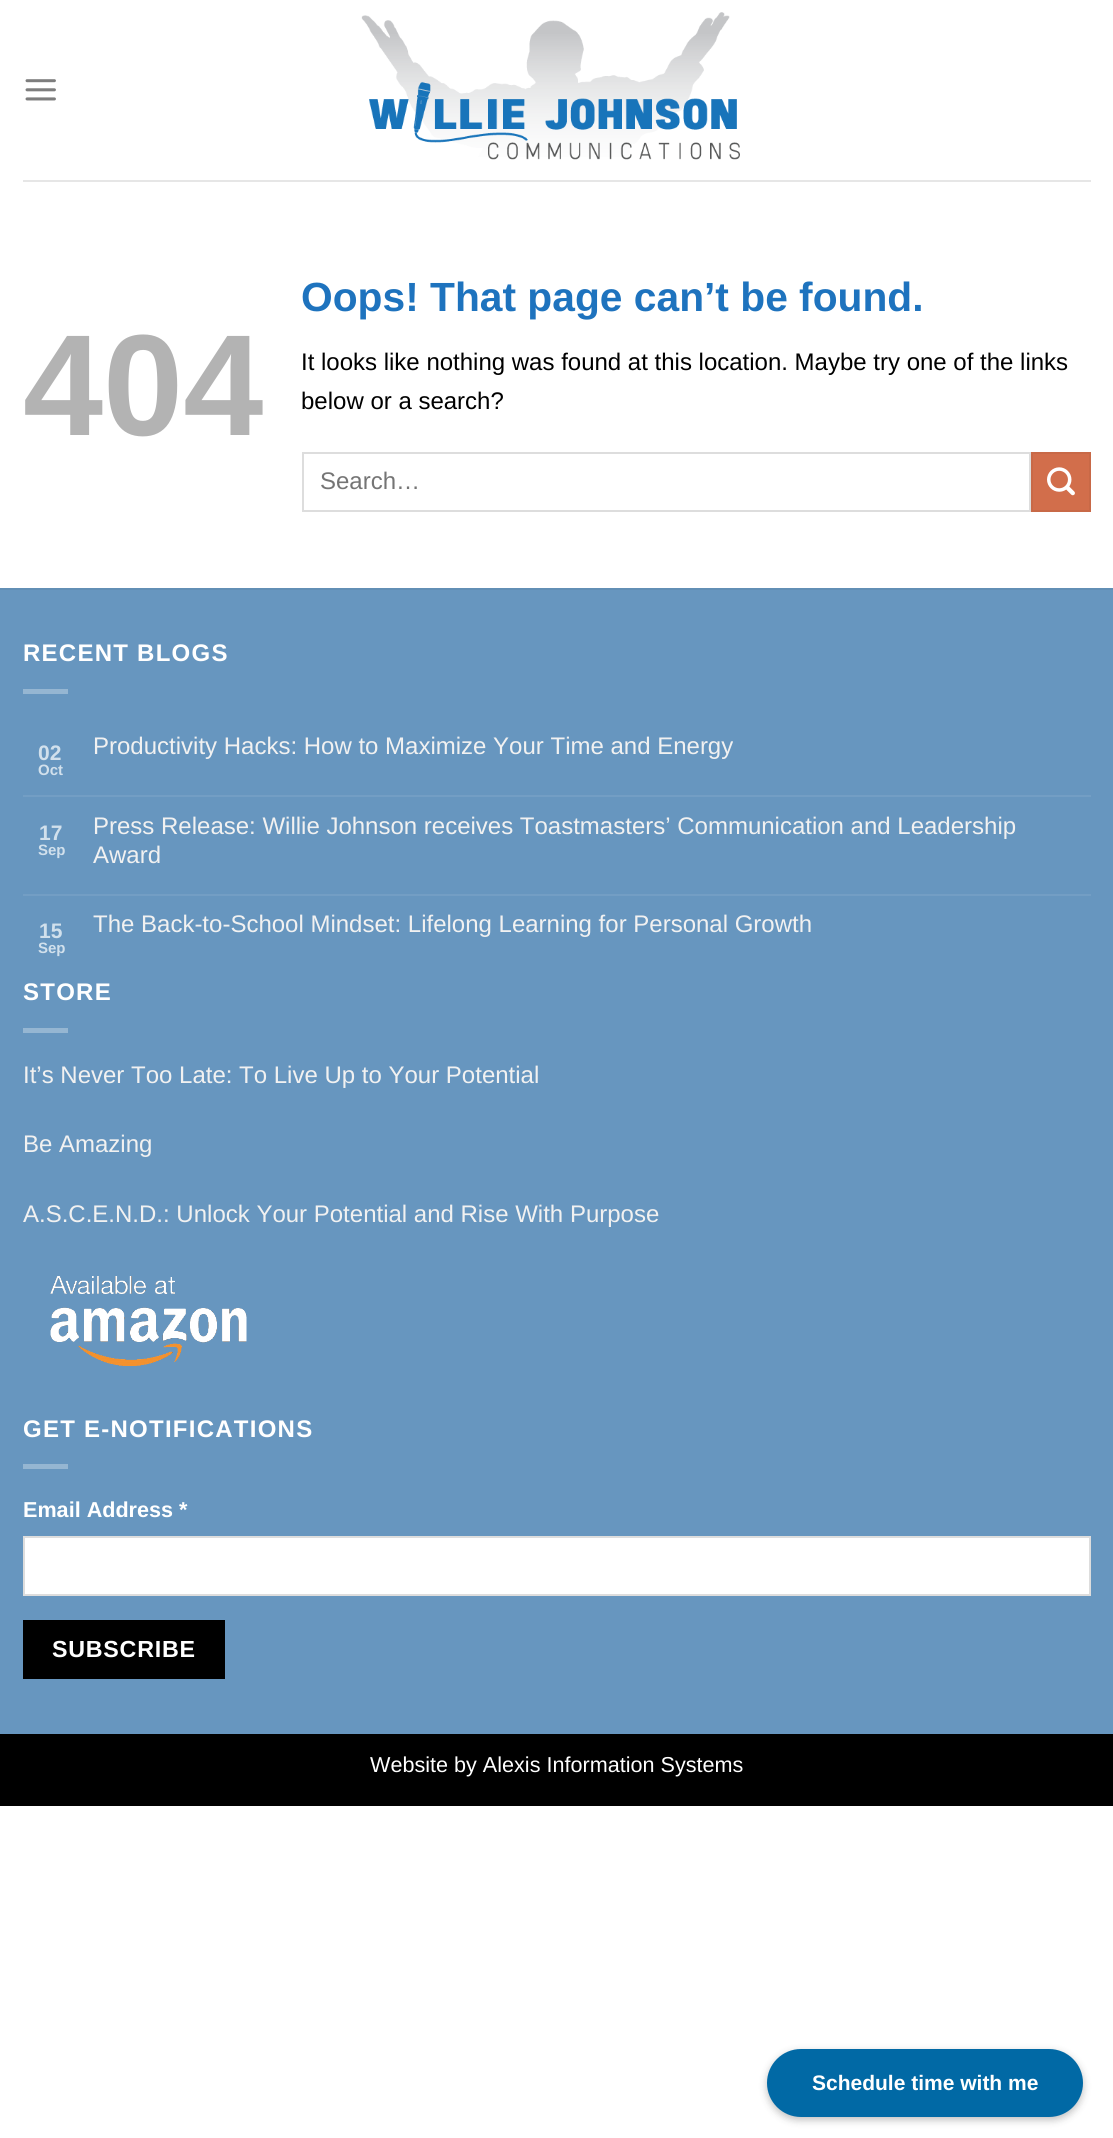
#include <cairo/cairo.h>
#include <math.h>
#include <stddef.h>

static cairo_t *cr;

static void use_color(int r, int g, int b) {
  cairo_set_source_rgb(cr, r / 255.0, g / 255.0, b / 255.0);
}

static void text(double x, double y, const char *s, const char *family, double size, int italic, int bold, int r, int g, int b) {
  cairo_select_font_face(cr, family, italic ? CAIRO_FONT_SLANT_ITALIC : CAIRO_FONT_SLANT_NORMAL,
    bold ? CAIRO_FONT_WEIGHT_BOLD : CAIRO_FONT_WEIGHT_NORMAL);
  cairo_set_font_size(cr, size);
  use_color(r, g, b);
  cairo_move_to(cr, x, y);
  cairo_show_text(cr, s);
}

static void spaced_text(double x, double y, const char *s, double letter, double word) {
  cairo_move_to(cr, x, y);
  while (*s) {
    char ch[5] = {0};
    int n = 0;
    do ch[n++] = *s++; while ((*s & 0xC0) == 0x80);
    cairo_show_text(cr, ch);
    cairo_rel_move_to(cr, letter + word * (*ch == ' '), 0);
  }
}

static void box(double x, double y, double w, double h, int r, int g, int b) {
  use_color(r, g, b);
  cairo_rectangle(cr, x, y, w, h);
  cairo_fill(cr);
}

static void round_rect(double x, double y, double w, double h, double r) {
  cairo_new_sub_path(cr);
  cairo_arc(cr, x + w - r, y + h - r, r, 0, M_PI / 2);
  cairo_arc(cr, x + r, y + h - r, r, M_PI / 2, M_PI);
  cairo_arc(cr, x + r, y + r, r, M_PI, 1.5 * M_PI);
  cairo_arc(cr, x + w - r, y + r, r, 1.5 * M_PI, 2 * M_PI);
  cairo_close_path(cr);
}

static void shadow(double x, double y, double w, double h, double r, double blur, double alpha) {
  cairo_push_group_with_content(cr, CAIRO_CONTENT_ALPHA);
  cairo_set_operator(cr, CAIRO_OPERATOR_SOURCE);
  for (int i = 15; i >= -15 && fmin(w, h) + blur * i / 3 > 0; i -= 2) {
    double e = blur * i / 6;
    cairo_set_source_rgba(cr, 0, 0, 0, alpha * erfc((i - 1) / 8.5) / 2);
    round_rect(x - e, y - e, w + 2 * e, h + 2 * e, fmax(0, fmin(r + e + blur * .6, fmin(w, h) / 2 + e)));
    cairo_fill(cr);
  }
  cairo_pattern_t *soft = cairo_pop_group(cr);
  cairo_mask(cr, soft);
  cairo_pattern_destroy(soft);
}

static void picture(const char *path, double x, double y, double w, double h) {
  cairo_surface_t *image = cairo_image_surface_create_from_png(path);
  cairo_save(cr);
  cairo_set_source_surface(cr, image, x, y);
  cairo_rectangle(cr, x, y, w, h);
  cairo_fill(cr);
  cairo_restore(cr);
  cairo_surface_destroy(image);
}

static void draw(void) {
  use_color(255, 255, 255);
  cairo_paint(cr);
  picture("img_01.png", 25, 79, 31, 22);
  picture("img_02.png", 361, 12, 379, 148);
  box(23, 180, 1068, 2, 230, 230, 230);
  cairo_rectangle(cr, 303, 453, 727, 58);
  use_color(221, 221, 221);
  cairo_stroke(cr);
  use_color(210, 110, 75);
  cairo_rectangle(cr, 1032, 453, 58, 58);
  cairo_fill_preserve(cr);
  use_color(200, 105, 71);
  cairo_stroke(cr);
  picture("img_03.png", 1047, 467, 28, 29);
  box(0, 590, 1113, 1144, 103, 150, 191);
  box(0, 588, 1113, 2, 98, 143, 181);
  box(23, 689, 45, 5, 149, 182, 210);
  box(23, 795, 1068, 2, 115, 158, 196);
  box(23, 894, 1068, 2, 115, 158, 196);
  box(23, 1028, 45, 5, 149, 182, 210);
  picture("img_04.png", 50, 1276, 197, 90);
  box(23, 1464, 45, 5, 149, 182, 210);
  use_color(255, 255, 255);
  cairo_rectangle(cr, 24, 1537, 1066, 58);
  cairo_fill_preserve(cr);
  use_color(221, 221, 221);
  cairo_stroke(cr);
  box(23, 1620, 202, 59, 0, 0, 0);
  box(0, 1734, 1113, 72, 0, 0, 0);
  use_color(0, 0, 0);
  shadow(767, 2052, 316, 68, 34, 4, 0.25);
  use_color(1, 105, 165);
  round_rect(767, 2049, 316, 68, 34);
  cairo_fill(cr);
  text(23, 435, "404", "Liberation Sans", 144, 0, 1, 179, 179, 179);
  text(301, 311, "Oops! That page can’t be found.", "Liberation Sans", 40.75, 0, 1, 30, 115, 190);
  text(301, 370, "It looks like nothing was found at this location. Maybe try one of the links", "Liberation Sans", 24, 0, 0, 0, 0, 0);
  text(301, 409, "below or a search?", "Liberation Sans", 24, 0, 0, 0, 0, 0);
  text(320, 489, "Search…", "Liberation Sans", 24, 0, 0, 117, 117, 117);
  cairo_select_font_face(cr, "Liberation Sans", CAIRO_FONT_SLANT_NORMAL, CAIRO_FONT_WEIGHT_BOLD);
  use_color(255, 255, 255);
  spaced_text(23, 661, "RECENT BLOGS", 1.25, 0);
  text(38, 760, "02", "Liberation Sans", 21, 0, 1, 209, 224, 236);
  text(38, 775, "Oct", "Liberation Sans", 15, 0, 1, 209, 224, 236);
  text(93, 754, "Productivity Hacks: How to Maximize Your Time and Energy", "Liberation Sans", 24, 0, 0, 241, 241, 241);
  text(39, 840, "17", "Liberation Sans", 21, 0, 1, 209, 224, 236);
  text(38, 855, "Sep", "Liberation Sans", 15, 0, 1, 209, 224, 236);
  text(93, 834, "Press Release: Willie Johnson receives Toastmasters’ Communication and Leadership", "Liberation Sans", 24, 0, 0, 241, 241, 241);
  text(93, 863, "Award", "Liberation Sans", 24, 0, 0, 241, 241, 241);
  text(39, 938, "15", "Liberation Sans", 21, 0, 1, 209, 224, 236);
  text(38, 953, "Sep", "Liberation Sans", 15, 0, 1, 209, 224, 236);
  text(93, 932, "The Back-to-School Mindset: Lifelong Learning for Personal Growth", "Liberation Sans", 24, 0, 0, 241, 241, 241);
  cairo_select_font_face(cr, "Liberation Sans", CAIRO_FONT_SLANT_NORMAL, CAIRO_FONT_WEIGHT_BOLD);
  use_color(255, 255, 255);
  spaced_text(23, 1000, "STORE", 1.25, 0);
  text(23, 1083, "It’s Never Too Late: To Live Up to Your Potential", "Liberation Sans", 24, 0, 0, 241, 241, 241);
  text(23, 1152, "Be Amazing", "Liberation Sans", 24, 0, 0, 241, 241, 241);
  text(23, 1222, "A.S.C.E.N.D.: Unlock Your Potential and Rise With Purpose", "Liberation Sans", 24, 0, 0, 241, 241, 241);
  cairo_select_font_face(cr, "Liberation Sans", CAIRO_FONT_SLANT_NORMAL, CAIRO_FONT_WEIGHT_BOLD);
  use_color(255, 255, 255);
  spaced_text(23, 1437, "GET E-NOTIFICATIONS", 1.25, 0);
  text(23, 1517, "Email Address *", "Liberation Sans", 21.6, 0, 1, 255, 255, 255);
  cairo_set_font_size(cr, 23.25);
  spaced_text(52, 1657, "SUBSCRIBE", 0.75, 0);
  text(370, 1772, "Website by Alexis Information Systems", "Liberation Sans", 21.6, 0, 0, 255, 255, 255);
  text(812, 2090, "Schedule time with me", "Liberation Sans", 21, 0, 1, 255, 255, 255);
}

int main(void) {
  cairo_surface_t *surface = cairo_image_surface_create(CAIRO_FORMAT_RGB24, 1113, 2138);
  cr = cairo_create(surface);
  cairo_font_options_t *options = cairo_font_options_create();
  cairo_font_options_set_hint_metrics(options, CAIRO_HINT_METRICS_OFF);
  cairo_font_options_set_hint_style(options, CAIRO_HINT_STYLE_NONE);
  cairo_set_font_options(cr, options);
  cairo_set_miter_limit(cr, 4);
  draw();
  cairo_surface_write_to_png(surface, "out.png");
  cairo_font_options_destroy(options);
  cairo_destroy(cr);
  cairo_surface_destroy(surface);
  return 0;
}
